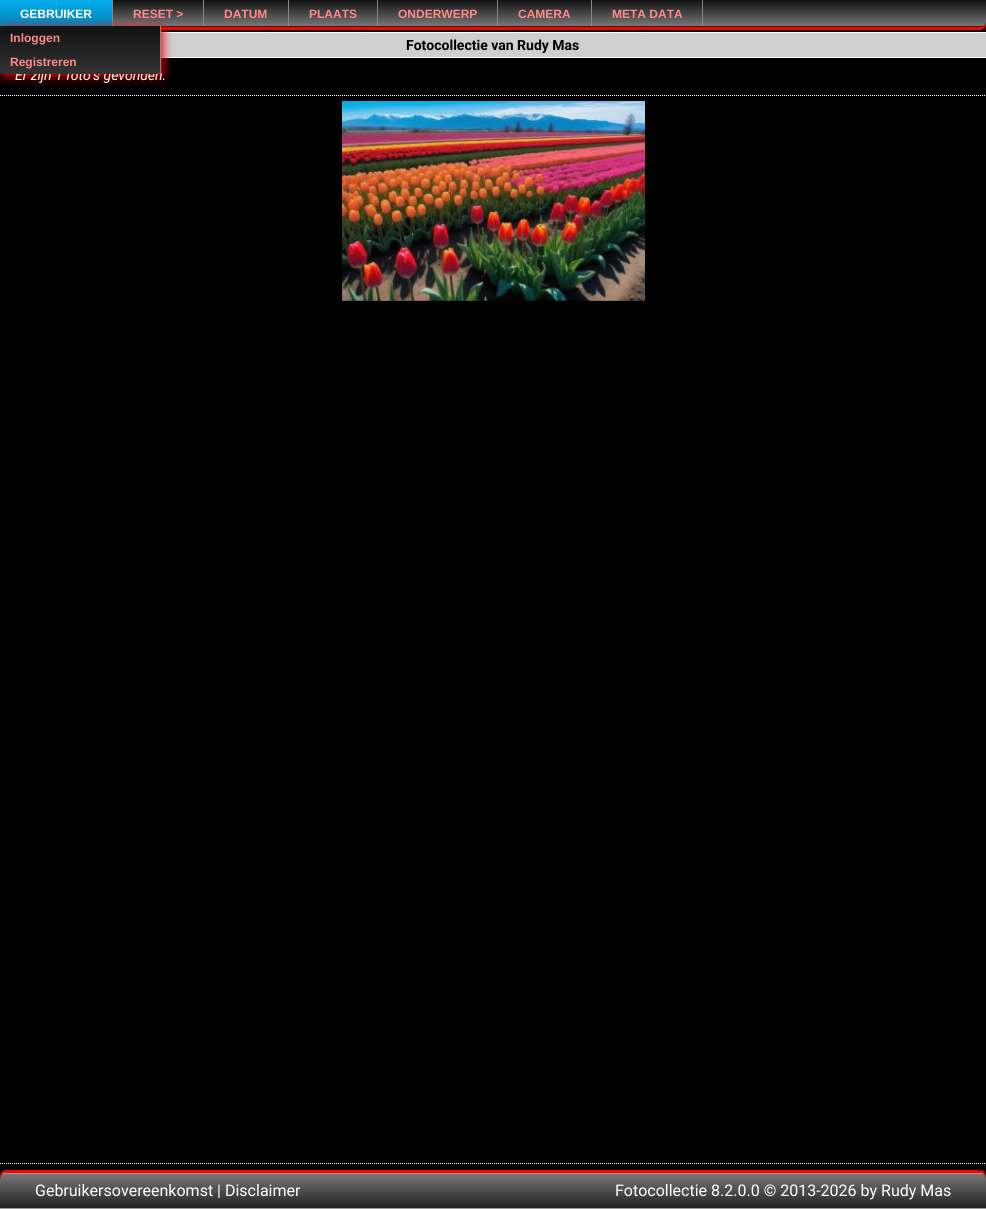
#include <cairo/cairo.h>
#include <math.h>
#include <stddef.h>

static cairo_t *cr;

static void use_color(int r, int g, int b) {
  cairo_set_source_rgb(cr, r / 255.0, g / 255.0, b / 255.0);
}

static void text(double x, double y, const char *s, const char *family, double size, int italic, int bold, int r, int g, int b) {
  cairo_select_font_face(cr, family, italic ? CAIRO_FONT_SLANT_ITALIC : CAIRO_FONT_SLANT_NORMAL,
    bold ? CAIRO_FONT_WEIGHT_BOLD : CAIRO_FONT_WEIGHT_NORMAL);
  cairo_set_font_size(cr, size);
  use_color(r, g, b);
  cairo_move_to(cr, x, y);
  cairo_show_text(cr, s);
}

static void box(double x, double y, double w, double h, int r, int g, int b) {
  use_color(r, g, b);
  cairo_rectangle(cr, x, y, w, h);
  cairo_fill(cr);
}

static void round_rect(double x, double y, double w, double h, double r) {
  cairo_new_sub_path(cr);
  cairo_arc(cr, x + w - r, y + h - r, r, 0, M_PI / 2);
  cairo_arc(cr, x + r, y + h - r, r, M_PI / 2, M_PI);
  cairo_arc(cr, x + r, y + r, r, M_PI, 1.5 * M_PI);
  cairo_arc(cr, x + w - r, y + r, r, 1.5 * M_PI, 2 * M_PI);
  cairo_close_path(cr);
}

static void shadow(double x, double y, double w, double h, double r, double blur, double alpha) {
  cairo_push_group_with_content(cr, CAIRO_CONTENT_ALPHA);
  cairo_set_operator(cr, CAIRO_OPERATOR_SOURCE);
  for (int i = 15; i >= -15 && fmin(w, h) + blur * i / 3 > 0; i -= 2) {
    double e = blur * i / 6;
    cairo_set_source_rgba(cr, 0, 0, 0, alpha * erfc((i - 1) / 8.5) / 2);
    round_rect(x - e, y - e, w + 2 * e, h + 2 * e, fmax(0, fmin(r + e + blur * .6, fmin(w, h) / 2 + e)));
    cairo_fill(cr);
  }
  cairo_pattern_t *soft = cairo_pop_group(cr);
  cairo_mask(cr, soft);
  cairo_pattern_destroy(soft);
}

static void picture(const char *path, double x, double y, double w, double h) {
  cairo_surface_t *image = cairo_image_surface_create_from_png(path);
  cairo_save(cr);
  cairo_set_source_surface(cr, image, x, y);
  cairo_rectangle(cr, x, y, w, h);
  cairo_fill(cr);
  cairo_restore(cr);
  cairo_surface_destroy(image);
}

static void draw(void) {
  cairo_pattern_t *gradient;
  use_color(0, 0, 0);
  cairo_paint(cr);
  use_color(255, 0, 0);
  cairo_new_path(cr);
  cairo_move_to(cr, 0, 21);
  cairo_line_to(cr, 0, 24);
  cairo_curve_to(cr, 0, 27, 3, 30, 6, 30);
  cairo_line_to(cr, 980, 30);
  cairo_curve_to(cr, 983, 30, 986, 27, 986, 24);
  cairo_line_to(cr, 986, 21);
  cairo_curve_to(cr, 986, 24, 983, 27, 980, 27);
  cairo_line_to(cr, 6, 27);
  cairo_curve_to(cr, 3, 27, 0, 24, 0, 21);
  cairo_close_path(cr);
  cairo_fill(cr);
  cairo_save(cr);
  cairo_new_path(cr);
  cairo_move_to(cr, 0, 0);
  cairo_line_to(cr, 986, 0);
  cairo_line_to(cr, 986, 21);
  cairo_curve_to(cr, 986, 24.5, 983.5, 27, 980, 27);
  cairo_line_to(cr, 6, 27);
  cairo_curve_to(cr, 2.5, 27, 0, 24.5, 0, 21);
  cairo_close_path(cr);
  cairo_clip(cr);
  gradient = cairo_pattern_create_linear(493, 0, 493, 26);
  cairo_pattern_add_color_stop_rgba(gradient, 0, 0.067, 0.067, 0.067, 1);
  cairo_pattern_add_color_stop_rgba(gradient, 1, 0.467, 0.467, 0.467, 1);
  cairo_set_source(cr, gradient);
  cairo_pattern_destroy(gradient);
  cairo_rectangle(cr, 113, 0, 873, 26);
  cairo_fill(cr);
  cairo_restore(cr);
  box(158, 26, 825, 1, 34, 34, 34);
  box(112, 0, 1, 26, 136, 136, 136);
  gradient = cairo_pattern_create_linear(56, 0, 56, 26);
  cairo_pattern_add_color_stop_rgba(gradient, 0, 0.016, 0.675, 0.925, 1);
  cairo_pattern_add_color_stop_rgba(gradient, 1, 0.004, 0.525, 0.729, 1);
  cairo_set_source(cr, gradient);
  cairo_pattern_destroy(gradient);
  cairo_rectangle(cr, 0, 0, 112, 26);
  cairo_fill(cr);
  box(161, 33, 825, 24, 207, 207, 207);
  box(161, 32, 825, 1, 255, 255, 255);
  box(161, 57, 825, 1, 255, 255, 255);
  use_color(255, 0, 0);
  shadow(2, 28, 161, 48, 3, 5, 1);
  box(203, 0, 1, 26, 136, 136, 136);
  box(288, 0, 1, 26, 136, 136, 136);
  box(377, 0, 1, 26, 136, 136, 136);
  box(497, 0, 1, 26, 136, 136, 136);
  box(591, 0, 1, 26, 136, 136, 136);
  box(702, 0, 1, 26, 136, 136, 136);
  cairo_new_path(cr);
  cairo_move_to(cr, 0, 95.5);
  cairo_line_to(cr, 986, 95.5);
  use_color(255, 255, 255);
  cairo_set_line_width(cr, 1);
  cairo_set_dash(cr, (double[]){1, 1}, 2, 0);
  cairo_stroke(cr);
  cairo_new_path(cr);
  cairo_move_to(cr, 0, 1163.5);
  cairo_line_to(cr, 986, 1163.5);
  cairo_stroke(cr);
  picture("img_01.png", 342, 101, 303, 200);
  use_color(255, 0, 0);
  cairo_new_path(cr);
  cairo_move_to(cr, 6, 1170);
  cairo_curve_to(cr, 1, 1170, 0, 1175, 0, 1179);
  cairo_curve_to(cr, 0, 1176, 3, 1173, 6, 1173);
  cairo_line_to(cr, 980, 1173);
  cairo_curve_to(cr, 983, 1173, 986, 1176, 986, 1179);
  cairo_curve_to(cr, 986, 1175, 985, 1170, 980, 1170);
  cairo_close_path(cr);
  cairo_fill(cr);
  cairo_save(cr);
  cairo_new_path(cr);
  cairo_move_to(cr, 6, 1173);
  cairo_line_to(cr, 980, 1173);
  cairo_curve_to(cr, 983.5, 1173, 986, 1175.5, 986, 1179);
  cairo_line_to(cr, 986, 1209);
  cairo_line_to(cr, 0, 1209);
  cairo_line_to(cr, 0, 1179);
  cairo_curve_to(cr, 0, 1175.5, 2.5, 1173, 6, 1173);
  cairo_close_path(cr);
  cairo_clip(cr);
  gradient = cairo_pattern_create_linear(493, 1174, 493, 1208);
  cairo_pattern_add_color_stop_rgba(gradient, 0, 0.467, 0.467, 0.467, 1);
  cairo_pattern_add_color_stop_rgba(gradient, 1, 0.133, 0.133, 0.133, 1);
  cairo_set_source(cr, gradient);
  cairo_pattern_destroy(gradient);
  cairo_rectangle(cr, 0, 1174, 986, 34);
  cairo_fill(cr);
  cairo_restore(cr);
  box(3, 1173, 980, 1, 153, 153, 153);
  box(0, 1208, 986, 1, 153, 153, 153);
  text(20, 18, "GEBRUIKER", "Liberation Sans", 12, 0, 1, 255, 255, 255);
  text(133, 18, "RESET >", "Liberation Sans", 12, 0, 1, 255, 138, 138);
  text(224, 18, "DATUM", "Liberation Sans", 12, 0, 1, 255, 138, 138);
  text(309, 18, "PLAATS", "Liberation Sans", 12, 0, 1, 255, 138, 138);
  text(398, 18, "ONDERWERP", "Liberation Sans", 12, 0, 1, 255, 138, 138);
  text(518, 18, "CAMERA", "Liberation Sans", 12, 0, 1, 255, 138, 138);
  text(612, 18, "META DATA", "Liberation Sans", 12, 0, 1, 255, 138, 138);
  text(406, 50, "Fotocollectie van Rudy Mas", "Roboto", 14, 0, 1, 0, 0, 0);
  text(15, 80, "Er zijn 1 foto's gevonden.", "Roboto", 14, 1, 0, 255, 255, 255);
  gradient = cairo_pattern_create_linear(81, 26, 81, 74);
  cairo_pattern_add_color_stop_rgba(gradient, 0, 0.067, 0.067, 0.067, 1);
  cairo_pattern_add_color_stop_rgba(gradient, 1, 0.2, 0.2, 0.2, 1);
  cairo_set_source(cr, gradient);
  cairo_pattern_destroy(gradient);
  round_rect(0, 26, 161, 48, 3);
  cairo_fill(cr);
  text(10, 66, "Registreren", "Liberation Sans", 12, 0, 1, 255, 138, 138);
  text(10, 42, "Inloggen", "Liberation Sans", 12, 0, 1, 255, 138, 138);
  box(160, 26, 1, 48, 136, 136, 136);
  text(35, 1196, "Gebruikersovereenkomst | Disclaimer", "Roboto", 16, 0, 0, 255, 255, 255);
  text(615, 1196, "Fotocollectie 8.2.0.0 © 2013-2026 by Rudy Mas", "Roboto", 16, 0, 0, 255, 255, 255);
}

int main(void) {
  cairo_surface_t *surface = cairo_image_surface_create(CAIRO_FORMAT_RGB24, 986, 1209);
  cr = cairo_create(surface);
  cairo_font_options_t *options = cairo_font_options_create();
  cairo_font_options_set_hint_metrics(options, CAIRO_HINT_METRICS_OFF);
  cairo_font_options_set_hint_style(options, CAIRO_HINT_STYLE_NONE);
  cairo_set_font_options(cr, options);
  cairo_set_miter_limit(cr, 4);
  draw();
  cairo_surface_write_to_png(surface, "out.png");
  cairo_font_options_destroy(options);
  cairo_destroy(cr);
  cairo_surface_destroy(surface);
  return 0;
}
